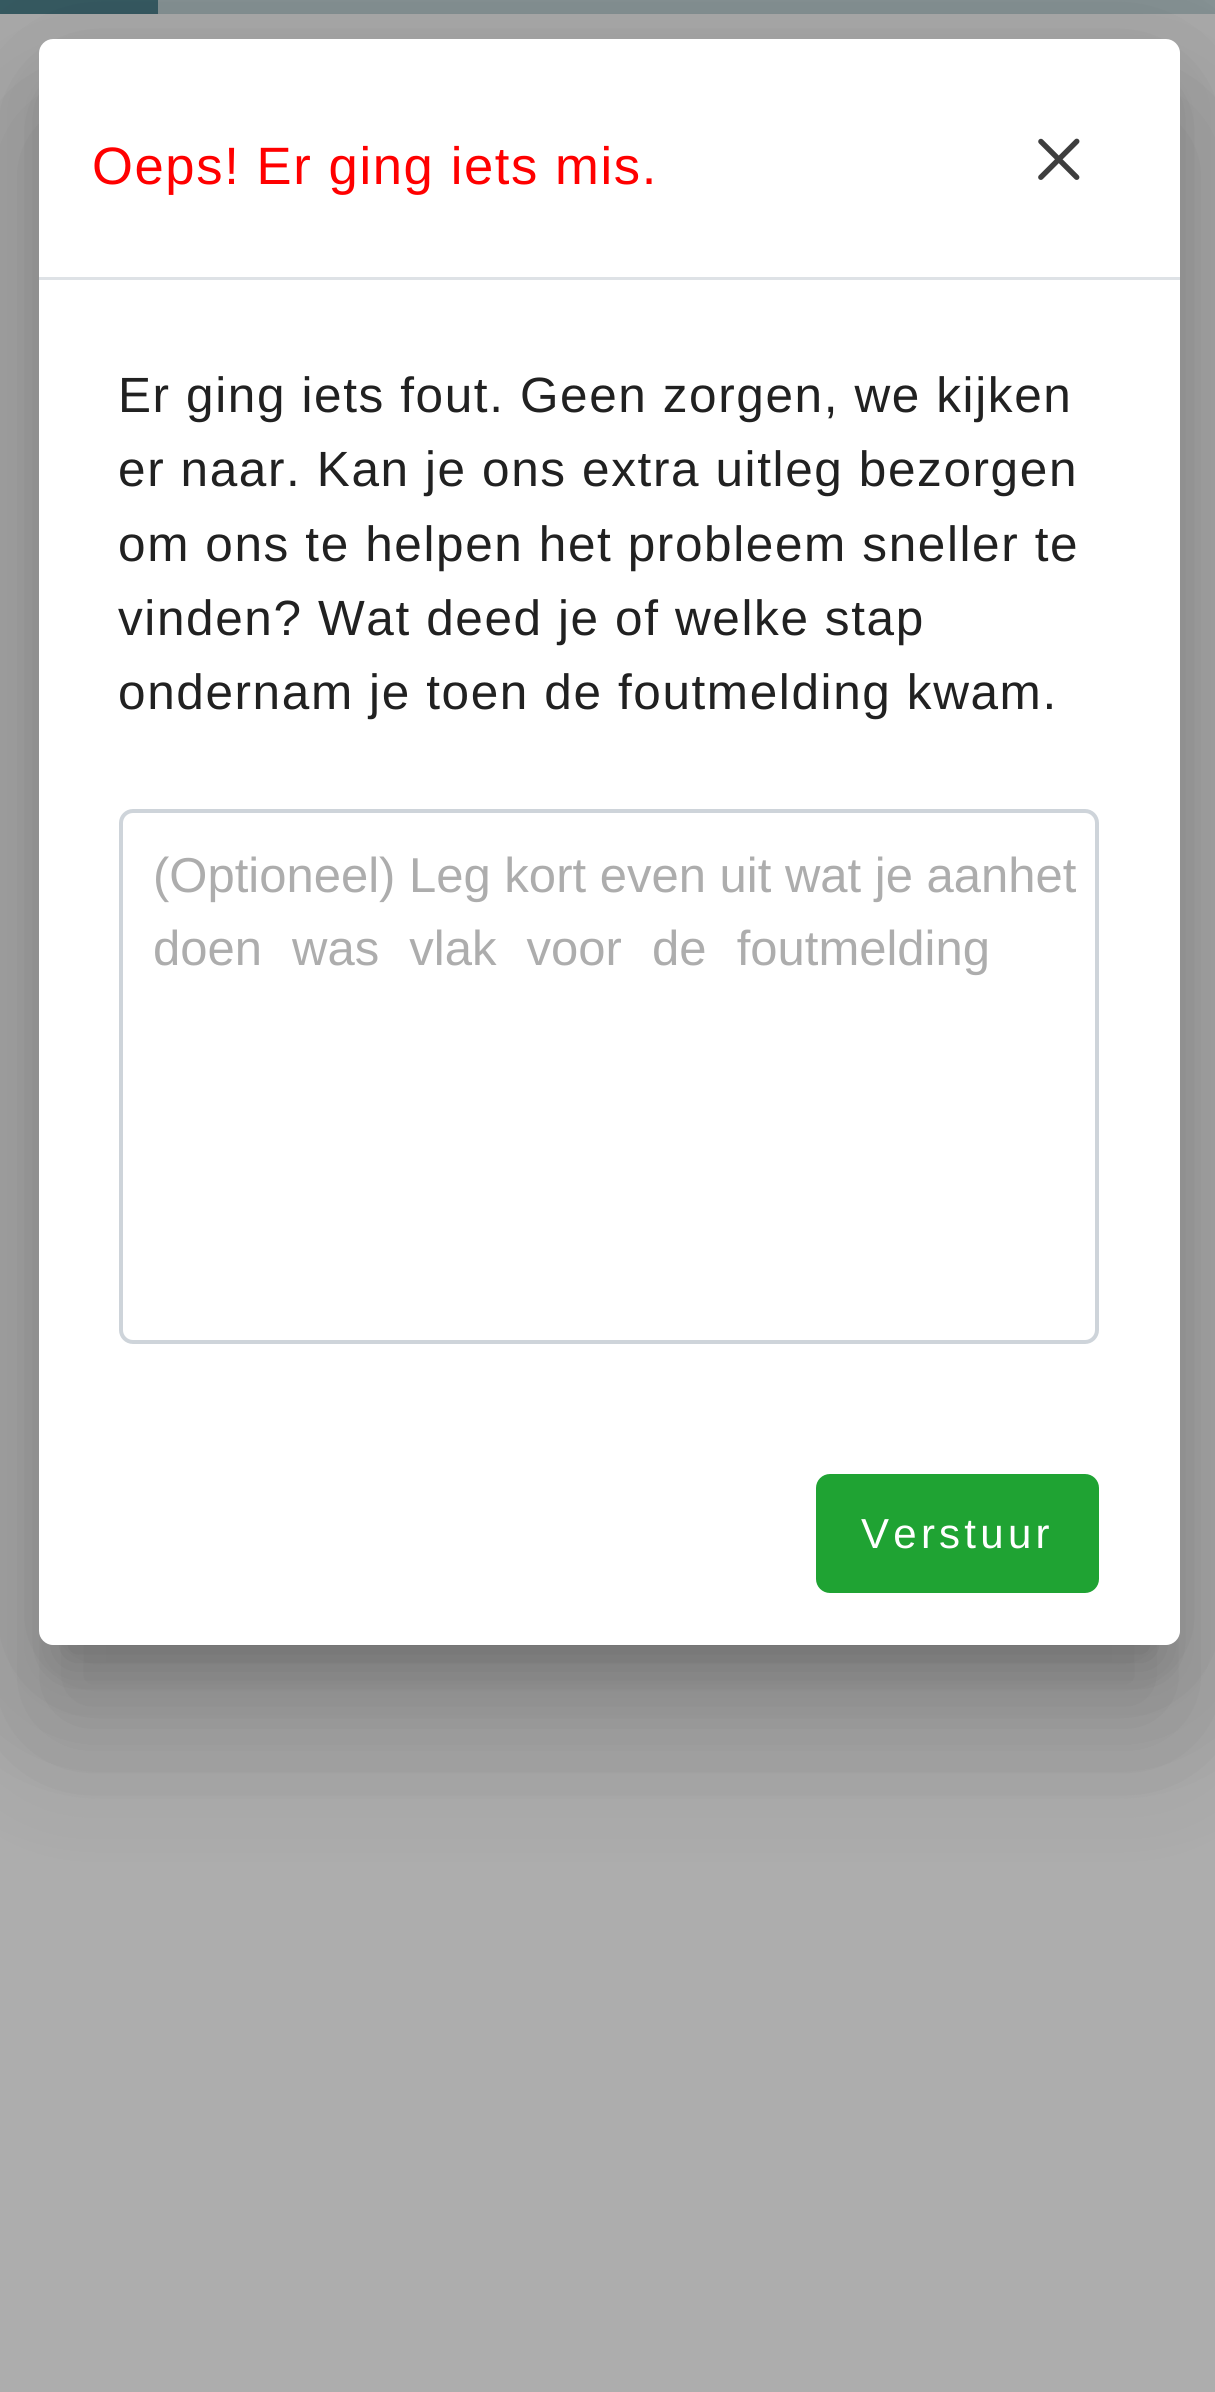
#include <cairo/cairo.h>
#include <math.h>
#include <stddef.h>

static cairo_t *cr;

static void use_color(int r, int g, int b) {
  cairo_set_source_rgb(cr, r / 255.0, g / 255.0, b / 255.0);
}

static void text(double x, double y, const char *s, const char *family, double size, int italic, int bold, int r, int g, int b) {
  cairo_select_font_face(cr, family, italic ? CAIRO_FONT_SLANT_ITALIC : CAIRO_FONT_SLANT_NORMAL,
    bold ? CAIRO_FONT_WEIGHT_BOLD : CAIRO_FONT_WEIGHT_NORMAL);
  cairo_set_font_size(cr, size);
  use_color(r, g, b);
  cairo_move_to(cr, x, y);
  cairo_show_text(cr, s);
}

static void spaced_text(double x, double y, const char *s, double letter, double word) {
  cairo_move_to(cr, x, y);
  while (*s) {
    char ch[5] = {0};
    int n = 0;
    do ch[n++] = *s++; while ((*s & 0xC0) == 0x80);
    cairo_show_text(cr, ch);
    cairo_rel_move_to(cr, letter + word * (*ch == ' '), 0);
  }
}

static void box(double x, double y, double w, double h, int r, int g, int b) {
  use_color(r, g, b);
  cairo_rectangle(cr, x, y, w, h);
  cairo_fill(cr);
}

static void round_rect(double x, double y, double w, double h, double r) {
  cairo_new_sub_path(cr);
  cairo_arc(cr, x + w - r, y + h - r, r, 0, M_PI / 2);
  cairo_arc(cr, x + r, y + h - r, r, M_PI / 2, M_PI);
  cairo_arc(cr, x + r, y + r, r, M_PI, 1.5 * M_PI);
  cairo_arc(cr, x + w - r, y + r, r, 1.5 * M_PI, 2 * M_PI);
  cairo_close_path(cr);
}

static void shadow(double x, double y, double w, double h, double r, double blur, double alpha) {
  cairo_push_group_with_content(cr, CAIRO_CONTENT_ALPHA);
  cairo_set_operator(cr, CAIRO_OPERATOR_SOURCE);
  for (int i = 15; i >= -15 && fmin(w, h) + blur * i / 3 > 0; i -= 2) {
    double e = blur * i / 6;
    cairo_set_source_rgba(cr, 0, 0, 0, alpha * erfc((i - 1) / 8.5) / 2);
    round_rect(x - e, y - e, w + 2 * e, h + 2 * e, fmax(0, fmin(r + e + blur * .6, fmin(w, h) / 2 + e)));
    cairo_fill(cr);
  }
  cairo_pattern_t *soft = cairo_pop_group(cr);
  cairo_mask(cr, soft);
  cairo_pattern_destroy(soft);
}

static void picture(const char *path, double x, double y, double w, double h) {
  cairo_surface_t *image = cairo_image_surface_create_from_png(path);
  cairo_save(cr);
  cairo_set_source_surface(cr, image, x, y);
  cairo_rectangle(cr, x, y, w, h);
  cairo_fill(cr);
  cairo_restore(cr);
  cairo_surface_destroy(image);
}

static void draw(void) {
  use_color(173, 173, 173);
  cairo_paint(cr);
  box(158, 0, 1057, 14, 135, 147, 149);
  box(0, 0, 158, 14, 54, 90, 98);
  use_color(0, 0, 0);
  shadow(11, 42, 1197, 1663, 42, 80.5, 0.12);
  shadow(28, 112, 1162, 1628, 25, 66.5, 0.14);
  shadow(63, 102, 1092, 1557, 0, 26, 0.2);
  use_color(255, 255, 255);
  cairo_new_path(cr);
  cairo_move_to(cr, 53, 39);
  cairo_line_to(cr, 1166, 39);
  cairo_curve_to(cr, 1173.5, 39, 1180, 45.5, 1180, 53);
  cairo_line_to(cr, 1180, 280);
  cairo_line_to(cr, 39, 280);
  cairo_line_to(cr, 39, 53);
  cairo_curve_to(cr, 39, 45.5, 45.5, 39, 53, 39);
  cairo_close_path(cr);
  cairo_fill(cr);
  box(39, 277, 1141, 3, 222, 226, 230);
  picture("img_01.png", 1038, 138, 42, 42);
  box(39, 280, 1141, 1141, 255, 255, 255);
  round_rect(121, 811, 976, 531, 12);
  use_color(206, 212, 218);
  cairo_set_line_width(cr, 4);
  cairo_stroke(cr);
  use_color(255, 255, 255);
  cairo_new_path(cr);
  cairo_move_to(cr, 39, 1421);
  cairo_line_to(cr, 1180, 1421);
  cairo_line_to(cr, 1180, 1631);
  cairo_curve_to(cr, 1180, 1638.5, 1173.5, 1645, 1166, 1645);
  cairo_line_to(cr, 53, 1645);
  cairo_curve_to(cr, 45.5, 1645, 39, 1638.5, 39, 1631);
  cairo_close_path(cr);
  cairo_fill(cr);
  use_color(31, 163, 51);
  round_rect(818, 1476, 279, 115, 12);
  cairo_fill_preserve(cr);
  cairo_stroke(cr);
  cairo_select_font_face(cr, "Liberation Sans", CAIRO_FONT_SLANT_NORMAL, CAIRO_FONT_WEIGHT_NORMAL);
  cairo_set_font_size(cr, 52.6);
  use_color(255, 0, 0);
  spaced_text(92, 184, "Oeps! Er ging iets mis.", 1.6, 0);
  cairo_set_font_size(cr, 49.5);
  use_color(33, 33, 33);
  spaced_text(118, 412, "Er ging iets fout. Geen zorgen, we kijken", 1.6, 0);
  spaced_text(118, 486, "er naar. Kan je ons extra uitleg bezorgen", 1.6, 0);
  spaced_text(118, 561, "om ons te helpen het probleem sneller te", 1.6, 0);
  spaced_text(118, 635, "vinden? Wat deed je of welke stap", 1.6, 0);
  spaced_text(118, 709, "ondernam je toen de foutmelding kwam.", 1.6, 0);
  text(153, 892, "(Optioneel) Leg kort even uit wat je aanhet", "Liberation Sans", 49, 0, 0, 173, 173, 173);
  spaced_text(153, 965, "doen was vlak voor de foutmelding", 0, 16.5);
  cairo_set_font_size(cr, 42);
  use_color(255, 255, 255);
  spaced_text(861, 1548, "Verstuur", 4.25, 0);
}

int main(void) {
  cairo_surface_t *surface = cairo_image_surface_create(CAIRO_FORMAT_RGB24, 1215, 2392);
  cr = cairo_create(surface);
  cairo_font_options_t *options = cairo_font_options_create();
  cairo_font_options_set_hint_metrics(options, CAIRO_HINT_METRICS_OFF);
  cairo_font_options_set_hint_style(options, CAIRO_HINT_STYLE_NONE);
  cairo_set_font_options(cr, options);
  cairo_set_miter_limit(cr, 4);
  draw();
  cairo_surface_write_to_png(surface, "out.png");
  cairo_font_options_destroy(options);
  cairo_destroy(cr);
  cairo_surface_destroy(surface);
  return 0;
}
